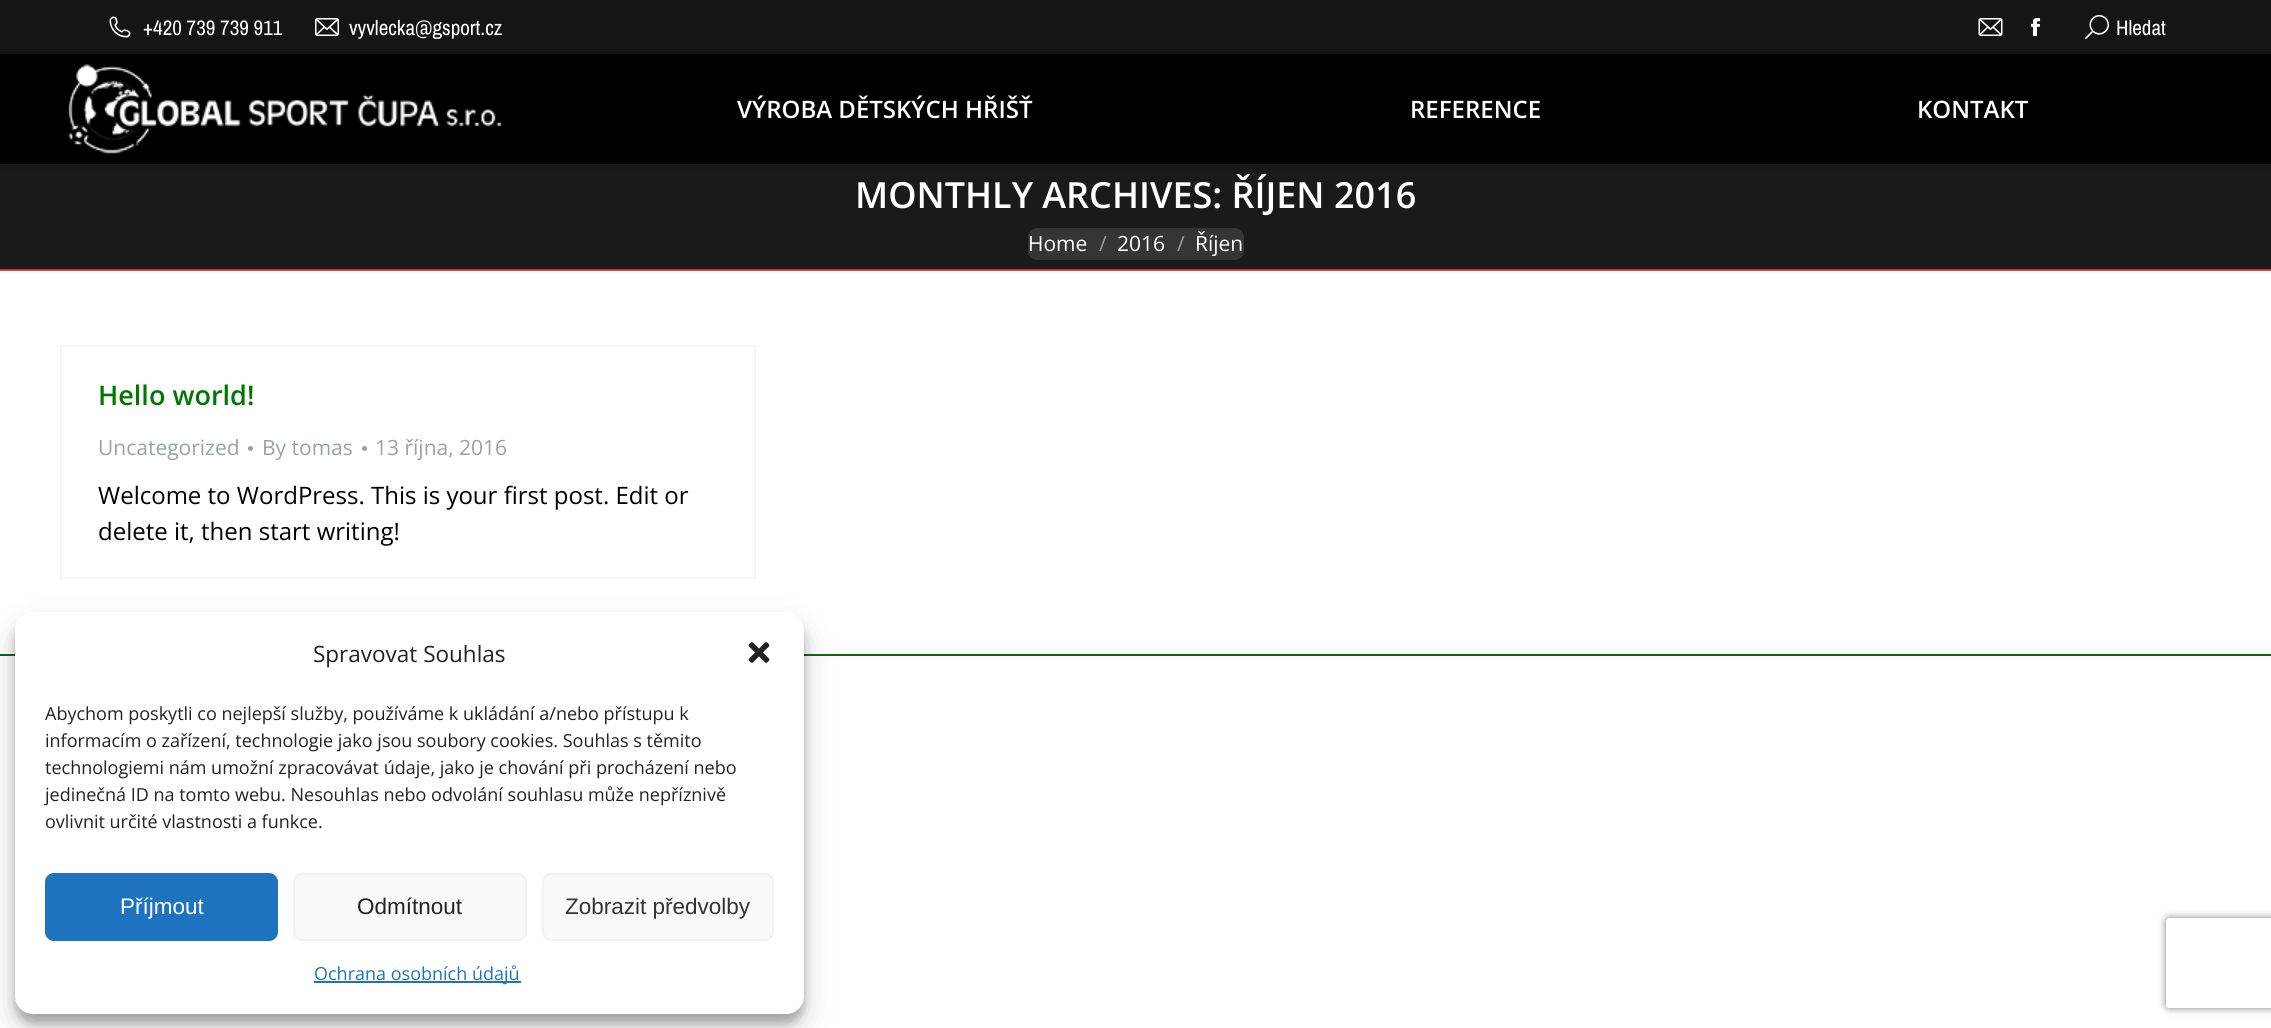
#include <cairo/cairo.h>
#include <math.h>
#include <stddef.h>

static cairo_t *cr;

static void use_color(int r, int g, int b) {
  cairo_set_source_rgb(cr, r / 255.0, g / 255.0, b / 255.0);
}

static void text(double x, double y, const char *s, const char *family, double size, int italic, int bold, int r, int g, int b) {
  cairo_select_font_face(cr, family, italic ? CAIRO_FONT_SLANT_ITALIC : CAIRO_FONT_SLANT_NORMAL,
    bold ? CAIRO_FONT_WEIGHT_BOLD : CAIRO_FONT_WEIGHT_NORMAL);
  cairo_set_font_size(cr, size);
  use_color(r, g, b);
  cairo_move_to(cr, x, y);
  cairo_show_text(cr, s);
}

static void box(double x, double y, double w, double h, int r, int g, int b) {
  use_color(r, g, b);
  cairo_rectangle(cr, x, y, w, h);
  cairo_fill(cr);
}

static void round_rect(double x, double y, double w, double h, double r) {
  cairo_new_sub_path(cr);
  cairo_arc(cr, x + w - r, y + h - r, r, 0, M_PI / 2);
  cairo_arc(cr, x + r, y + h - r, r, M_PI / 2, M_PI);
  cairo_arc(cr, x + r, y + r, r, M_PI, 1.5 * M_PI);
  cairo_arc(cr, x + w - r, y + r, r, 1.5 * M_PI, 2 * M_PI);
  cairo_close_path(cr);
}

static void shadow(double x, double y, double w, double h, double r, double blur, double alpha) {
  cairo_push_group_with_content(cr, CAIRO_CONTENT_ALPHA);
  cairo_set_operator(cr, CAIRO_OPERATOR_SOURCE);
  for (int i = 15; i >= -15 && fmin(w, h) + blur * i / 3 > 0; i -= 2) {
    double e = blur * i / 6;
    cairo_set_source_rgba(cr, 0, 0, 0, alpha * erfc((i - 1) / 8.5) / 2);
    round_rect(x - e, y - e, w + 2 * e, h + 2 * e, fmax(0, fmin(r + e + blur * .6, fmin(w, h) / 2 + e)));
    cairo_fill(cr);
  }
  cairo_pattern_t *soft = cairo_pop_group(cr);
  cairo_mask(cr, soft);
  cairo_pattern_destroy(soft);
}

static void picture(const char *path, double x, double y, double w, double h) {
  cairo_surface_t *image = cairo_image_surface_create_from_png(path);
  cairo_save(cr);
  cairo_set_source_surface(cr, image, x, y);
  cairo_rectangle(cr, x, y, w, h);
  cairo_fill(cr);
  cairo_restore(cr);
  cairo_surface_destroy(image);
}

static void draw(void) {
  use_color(255, 255, 255);
  cairo_paint(cr);
  box(0, 164, 2271, 105, 26, 26, 26);
  use_color(0, 0, 0);
  shadow(-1, -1, 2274, 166, 0, 11, 0.07);
  box(0, 54, 2271, 110, 0, 0, 0);
  box(0, 0, 2271, 54, 21, 21, 21);
  picture("img_01.png", 109, 16, 22, 22);
  picture("img_02.png", 315, 18, 24, 18);
  picture("img_03.png", 1978, 18, 25, 18);
  picture("img_04.png", 2030, 18, 11, 18);
  picture("img_05.png", 2085, 15, 24, 24);
  picture("img_06.png", 68, 64, 434, 90);
  box(0, 269, 2271, 1, 203, 49, 49);
  use_color(53, 53, 53);
  round_rect(1028, 228, 216, 32, 9);
  cairo_fill(cr);
  box(0, 270, 2271, 1, 224, 69, 69);
  cairo_rectangle(cr, 61, 346, 694, 232);
  use_color(244, 244, 244);
  cairo_stroke(cr);
  use_color(155, 161, 168);
  cairo_arc(cr, 250.5, 448.5, 2.5, 0, 2 * M_PI);
  cairo_fill(cr);
  cairo_arc(cr, 364.5, 448.5, 2.5, 0, 2 * M_PI);
  cairo_fill(cr);
  box(0, 654, 2271, 2, 21, 102, 19);
  use_color(0, 0, 0);
  shadow(15, 621, 789, 402, 18, 4.5, 0.23);
  shadow(15, 627, 789, 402, 18, 15, 0.19);
  use_color(255, 255, 255);
  round_rect(15, 612, 789, 402, 18);
  cairo_fill(cr);
  picture("img_07.png", 748, 642, 22, 21);
  use_color(30, 115, 190);
  round_rect(46, 874, 231, 66, 8);
  cairo_fill_preserve(cr);
  cairo_stroke(cr);
  use_color(249, 249, 249);
  round_rect(294, 874, 232, 66, 8);
  cairo_fill_preserve(cr);
  use_color(242, 242, 242);
  cairo_stroke(cr);
  use_color(249, 249, 249);
  round_rect(543, 874, 230, 66, 8);
  cairo_fill_preserve(cr);
  use_color(242, 242, 242);
  cairo_stroke(cr);
  box(314, 981, 207, 2, 30, 115, 190);
  cairo_save(cr);
  cairo_set_fill_rule(cr, CAIRO_FILL_RULE_EVEN_ODD);
  cairo_new_path(cr);
  cairo_move_to(cr, 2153, 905);
  cairo_line_to(cr, 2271, 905);
  cairo_line_to(cr, 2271, 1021);
  cairo_line_to(cr, 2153, 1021);
  cairo_close_path(cr);
  cairo_move_to(cr, 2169, 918);
  cairo_line_to(cr, 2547, 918);
  cairo_curve_to(cr, 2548.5, 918, 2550, 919.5, 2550, 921);
  cairo_line_to(cr, 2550, 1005);
  cairo_curve_to(cr, 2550, 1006.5, 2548.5, 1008, 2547, 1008);
  cairo_line_to(cr, 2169, 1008);
  cairo_curve_to(cr, 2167.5, 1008, 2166, 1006.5, 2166, 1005);
  cairo_line_to(cr, 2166, 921);
  cairo_curve_to(cr, 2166, 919.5, 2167.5, 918, 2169, 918);
  cairo_close_path(cr);
  cairo_clip(cr);
  use_color(128, 128, 128);
  shadow(2166, 918, 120, 90, 3, 4, 1);
  cairo_restore(cr);
  text(143, 35, "+420 739 739 911", "Archivo Narrow", 21, 0, 0, 255, 255, 255);
  text(349, 35, "vyvlecka@gsport.cz", "Archivo Narrow", 21, 0, 0, 255, 255, 255);
  text(2116, 35, "Hledat", "Archivo Narrow", 21, 0, 0, 255, 255, 255);
  text(737, 118, "VÝROBA DĚTSKÝCH HŘIŠŤ", "Open Sans SemiBold", 24, 0, 0, 255, 255, 255);
  text(1410, 118, "REFERENCE", "Open Sans SemiBold", 24, 0, 0, 255, 255, 255);
  text(1917, 118, "KONTAKT", "Open Sans SemiBold", 24, 0, 0, 255, 255, 255);
  text(855, 208, "MONTHLY ARCHIVES: ŘÍJEN 2016", "Open Sans SemiBold", 36, 0, 0, 255, 255, 255);
  text(1028, 251, "Home", "Open Sans", 21, 0, 0, 255, 255, 255);
  text(1099, 251, "/", "Open Sans", 21, 0, 0, 154, 154, 154);
  text(1117, 251, "2016", "Open Sans", 21, 0, 0, 255, 255, 255);
  text(1177, 251, "/", "Open Sans", 21, 0, 0, 154, 154, 154);
  text(1195, 251, "Říjen", "Open Sans", 21, 0, 0, 255, 255, 255);
  text(98, 405, "Hello world!", "Open Sans SemiBold", 27, 0, 0, 0, 119, 1);
  text(98, 455, "Uncategorized", "Open Sans", 21, 0, 0, 155, 161, 168);
  text(262, 455, "By tomas", "Open Sans", 21, 0, 0, 155, 161, 168);
  text(375, 455, "13 října, 2016", "Open Sans", 21, 0, 0, 155, 161, 168);
  text(98, 504, "Welcome to WordPress. This is your first post. Edit or", "Open Sans", 24, 0, 0, 0, 0, 0);
  text(98, 540, "delete it, then start writing!", "Open Sans", 24, 0, 0, 0, 0, 0);
  text(313, 662, "Spravovat Souhlas", "Open Sans", 22.5, 0, 0, 34, 34, 34);
  text(45, 720, "Abychom poskytli co nejlepší služby, používáme k ukládání a/nebo přístupu k", "Open Sans", 18, 0, 0, 34, 34, 34);
  text(45, 747, "informacím o zařízení, technologie jako jsou soubory cookies. Souhlas s těmito", "Open Sans", 18, 0, 0, 34, 34, 34);
  text(45, 774, "technologiemi nám umožní zpracovávat údaje, jako je chování při procházení nebo", "Open Sans", 18, 0, 0, 34, 34, 34);
  text(45, 801, "jedinečná ID na tomto webu. Nesouhlas nebo odvolání souhlasu může nepříznivě", "Open Sans", 18, 0, 0, 34, 34, 34);
  text(45, 828, "ovlivnit určité vlastnosti a funkce.", "Open Sans", 18, 0, 0, 34, 34, 34);
  text(120, 914, "Příjmout", "Liberation Sans", 22.5, 0, 0, 255, 255, 255);
  text(357, 914, "Odmítnout", "Liberation Sans", 22.5, 0, 0, 34, 34, 34);
  text(565, 914, "Zobrazit předvolby", "Liberation Sans", 22.5, 0, 0, 51, 51, 51);
  text(314, 980, "Ochrana osobních údajů", "Open Sans", 18, 0, 0, 30, 115, 190);
}

int main(void) {
  cairo_surface_t *surface = cairo_image_surface_create(CAIRO_FORMAT_RGB24, 2271, 1028);
  cr = cairo_create(surface);
  cairo_font_options_t *options = cairo_font_options_create();
  cairo_font_options_set_hint_metrics(options, CAIRO_HINT_METRICS_OFF);
  cairo_font_options_set_hint_style(options, CAIRO_HINT_STYLE_NONE);
  cairo_set_font_options(cr, options);
  cairo_set_miter_limit(cr, 4);
  draw();
  cairo_surface_write_to_png(surface, "out.png");
  cairo_font_options_destroy(options);
  cairo_destroy(cr);
  cairo_surface_destroy(surface);
  return 0;
}
